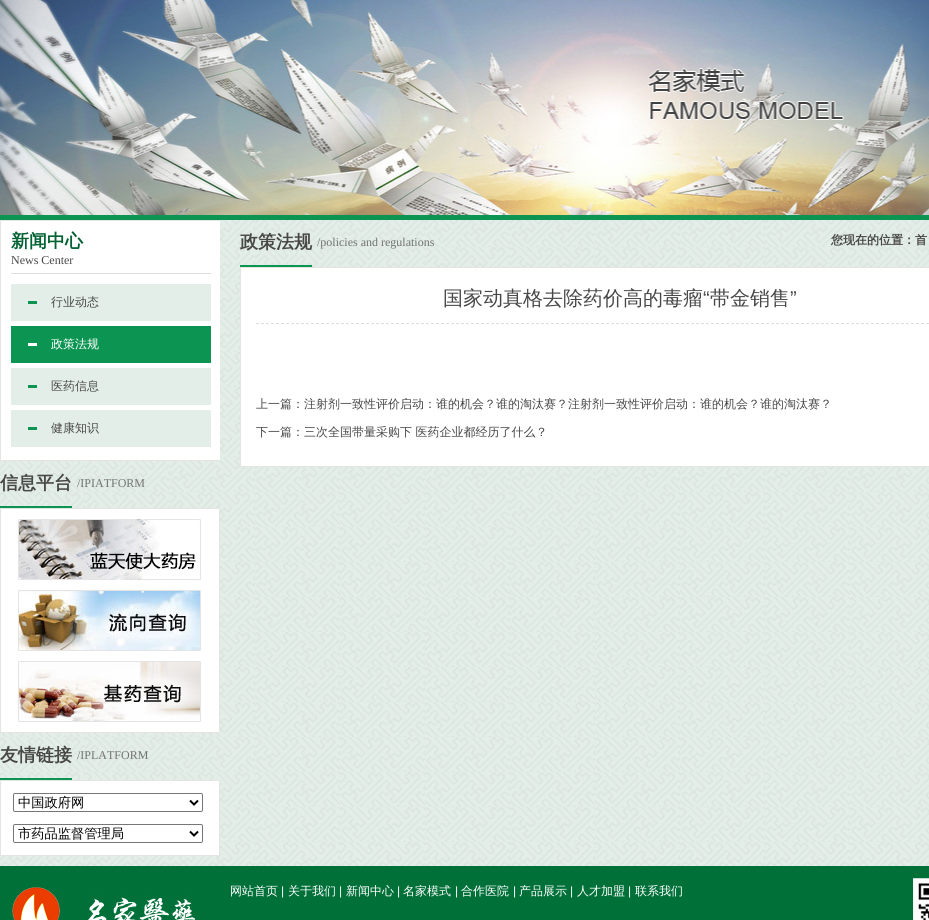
#include <cairo/cairo.h>
#include <math.h>
#include <stddef.h>

static cairo_t *cr;

static void use_color(int r, int g, int b) {
  cairo_set_source_rgb(cr, r / 255.0, g / 255.0, b / 255.0);
}

static void text(double x, double y, const char *s, const char *family, double size, int italic, int bold, int r, int g, int b) {
  cairo_select_font_face(cr, family, italic ? CAIRO_FONT_SLANT_ITALIC : CAIRO_FONT_SLANT_NORMAL,
    bold ? CAIRO_FONT_WEIGHT_BOLD : CAIRO_FONT_WEIGHT_NORMAL);
  cairo_set_font_size(cr, size);
  use_color(r, g, b);
  cairo_move_to(cr, x, y);
  cairo_show_text(cr, s);
}

static void box(double x, double y, double w, double h, int r, int g, int b) {
  use_color(r, g, b);
  cairo_rectangle(cr, x, y, w, h);
  cairo_fill(cr);
}

static void round_rect(double x, double y, double w, double h, double r) {
  cairo_new_sub_path(cr);
  cairo_arc(cr, x + w - r, y + h - r, r, 0, M_PI / 2);
  cairo_arc(cr, x + r, y + h - r, r, M_PI / 2, M_PI);
  cairo_arc(cr, x + r, y + r, r, M_PI, 1.5 * M_PI);
  cairo_arc(cr, x + w - r, y + r, r, 1.5 * M_PI, 2 * M_PI);
  cairo_close_path(cr);
}

static void picture(const char *path, double x, double y, double w, double h) {
  cairo_surface_t *image = cairo_image_surface_create_from_png(path);
  cairo_save(cr);
  cairo_set_source_surface(cr, image, x, y);
  cairo_rectangle(cr, x, y, w, h);
  cairo_fill(cr);
  cairo_restore(cr);
  cairo_surface_destroy(image);
}

static void draw(void) {
  use_color(255, 255, 255);
  cairo_paint(cr);
  picture("img_01.png", 0, 220, 929, 646);
  picture("img_02.png", 0, 0, 929, 215);
  box(0, 215, 929, 5, 12, 149, 82);
  box(1, 221, 219, 239, 255, 255, 255);
  cairo_save(cr);
  cairo_rectangle(cr, 0, 220, 220, 636);
  cairo_clip(cr);
  cairo_rectangle(cr, 0.5, 220.5, 221, 240);
  use_color(228, 228, 228);
  cairo_set_line_width(cr, 1);
  cairo_stroke(cr);
  cairo_restore(cr);
  box(11, 273, 200, 1, 221, 221, 221);
  box(11, 284, 200, 37, 227, 238, 233);
  box(28, 301, 9, 3, 12, 148, 82);
  box(11, 326, 200, 37, 12, 149, 82);
  box(28, 343, 9, 3, 255, 255, 254);
  box(11, 368, 200, 37, 227, 238, 233);
  box(28, 385, 9, 3, 12, 148, 82);
  box(11, 410, 200, 37, 227, 238, 233);
  box(28, 427, 9, 3, 12, 148, 82);
  box(0, 506, 72, 2, 12, 149, 82);
  use_color(255, 255, 255);
  cairo_rectangle(cr, 0.5, 508.5, 219, 224);
  cairo_fill_preserve(cr);
  use_color(228, 228, 228);
  cairo_set_line_width(cr, 1);
  cairo_stroke(cr);
  picture("img_03.png", 18, 519, 183, 61);
  picture("img_04.png", 18, 590, 183, 61);
  picture("img_05.png", 18, 661, 183, 61);
  box(0, 778, 72, 2, 12, 149, 82);
  use_color(255, 255, 255);
  cairo_rectangle(cr, 0.5, 780.5, 219, 75);
  cairo_fill_preserve(cr);
  use_color(228, 228, 228);
  cairo_stroke(cr);
  round_rect(13.5, 793.5, 189, 18, 1.5);
  use_color(118, 118, 118);
  cairo_stroke(cr);
  cairo_new_path(cr);
  cairo_move_to(cr, 190, 800.5);
  cairo_line_to(cr, 194, 804.5);
  cairo_line_to(cr, 198, 800.5);
  use_color(0, 0, 0);
  cairo_set_line_width(cr, 2);
  cairo_stroke(cr);
  round_rect(13.5, 824.5, 189, 18, 1.5);
  use_color(118, 118, 118);
  cairo_set_line_width(cr, 1);
  cairo_stroke(cr);
  cairo_new_path(cr);
  cairo_move_to(cr, 190, 831.5);
  cairo_line_to(cr, 194, 835.5);
  cairo_line_to(cr, 198, 831.5);
  use_color(0, 0, 0);
  cairo_set_line_width(cr, 2);
  cairo_stroke(cr);
  box(240, 265, 72, 2, 12, 149, 82);
  use_color(255, 255, 255);
  cairo_rectangle(cr, 240.5, 267.5, 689, 199);
  cairo_fill_preserve(cr);
  use_color(228, 228, 228);
  cairo_set_line_width(cr, 1);
  cairo_stroke(cr);
  cairo_new_path(cr);
  cairo_move_to(cr, 256, 323.5);
  cairo_line_to(cr, 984, 323.5);
  use_color(221, 221, 221);
  cairo_set_dash(cr, (double[]){3, 2}, 2, 0);
  cairo_stroke(cr);
  box(0, 866, 929, 54, 0, 112, 57);
  picture("img_06.png", 913, 878, 16, 42);
  picture("img_07.png", 12, 887, 183, 33);
  text(11, 247, "新闻中心", "WenQuanYi Zen Hei", 18, 0, 1, 0, 97, 50);
  text(11, 264, "News Center", "Liberation Serif", 12, 0, 0, 72, 71, 71);
  text(51, 306, "行业动态", "WenQuanYi Zen Hei Medium", 12, 0, 0, 72, 71, 71);
  text(51, 348, "政策法规", "WenQuanYi Zen Hei Medium", 12, 0, 0, 255, 255, 255);
  text(51, 390, "医药信息", "WenQuanYi Zen Hei Medium", 12, 0, 0, 72, 71, 71);
  text(51, 432, "健康知识", "WenQuanYi Zen Hei Medium", 12, 0, 0, 72, 71, 71);
  text(0, 489, "信息平台", "WenQuanYi Zen Hei", 18, 0, 1, 72, 71, 71);
  text(77, 487, "/IPIATFORM", "Liberation Serif", 12, 0, 0, 115, 115, 115);
  text(0, 761, "友情链接", "WenQuanYi Zen Hei", 18, 0, 1, 72, 71, 71);
  text(77, 759, "/IPLATFORM", "Liberation Serif", 12, 0, 0, 115, 115, 115);
  text(18, 807, "中国政府网", "WenQuanYi Zen Hei Medium", 13.25, 0, 0, 0, 0, 0);
  text(18, 838, "市药品监督管理局", "WenQuanYi Zen Hei Medium", 13.25, 0, 0, 0, 0, 0);
  text(240, 248, "政策法规", "WenQuanYi Zen Hei", 18, 0, 1, 72, 71, 71);
  text(317, 246, "/policies and regulations", "Liberation Serif", 12, 0, 0, 115, 115, 115);
  text(831, 244, "您现在的位置：首", "WenQuanYi Zen Hei", 12, 0, 1, 72, 71, 71);
  text(443, 305, "国家动真格去除药价高的毒瘤", "WenQuanYi Zen Hei Medium", 20, 0, 0, 72, 71, 71);
  text(703, 305, "“", "Liberation Sans", 20, 0, 0, 72, 71, 71);
  text(710, 305, "带金销售", "WenQuanYi Zen Hei Medium", 20, 0, 0, 72, 71, 71);
  text(790, 305, "”", "Liberation Sans", 20, 0, 0, 72, 71, 71);
  text(256, 408, "上一篇：注射剂一致性评价启动：谁的机会？谁的淘汰赛？注射剂一致性评价启动：谁的机会？谁的淘汰赛？", "WenQuanYi Zen Hei Medium", 12, 0, 0, 72, 71, 71);
  text(256, 436, "下一篇：三次全国带量采购下 医药企业都经历了什么？", "WenQuanYi Zen Hei Medium", 12, 0, 0, 72, 71, 71);
  text(230, 895, "网站首页", "WenQuanYi Zen Hei Medium", 12, 0, 0, 255, 255, 255);
  text(281, 895, "|", "Liberation Sans", 12, 0, 0, 255, 255, 255);
  text(288, 895, "关于我们", "WenQuanYi Zen Hei Medium", 12, 0, 0, 255, 255, 255);
  text(339, 895, "|", "Liberation Sans", 12, 0, 0, 255, 255, 255);
  text(346, 895, "新闻中心", "WenQuanYi Zen Hei Medium", 12, 0, 0, 255, 255, 255);
  text(397, 895, "|", "Liberation Sans", 12, 0, 0, 255, 255, 255);
  text(403, 895, "名家模式", "WenQuanYi Zen Hei Medium", 12, 0, 0, 255, 255, 255);
  text(455, 895, "|", "Liberation Sans", 12, 0, 0, 255, 255, 255);
  text(461, 895, "合作医院", "WenQuanYi Zen Hei Medium", 12, 0, 0, 255, 255, 255);
  text(513, 895, "|", "Liberation Sans", 12, 0, 0, 255, 255, 255);
  text(519, 895, "产品展示", "WenQuanYi Zen Hei Medium", 12, 0, 0, 255, 255, 255);
  text(570, 895, "|", "Liberation Sans", 12, 0, 0, 255, 255, 255);
  text(577, 895, "人才加盟", "WenQuanYi Zen Hei Medium", 12, 0, 0, 255, 255, 255);
  text(628, 895, "|", "Liberation Sans", 12, 0, 0, 255, 255, 255);
  text(635, 895, "联系我们", "WenQuanYi Zen Hei Medium", 12, 0, 0, 255, 255, 255);
}

int main(void) {
  cairo_surface_t *surface = cairo_image_surface_create(CAIRO_FORMAT_RGB24, 929, 920);
  cr = cairo_create(surface);
  cairo_font_options_t *options = cairo_font_options_create();
  cairo_font_options_set_hint_metrics(options, CAIRO_HINT_METRICS_OFF);
  cairo_font_options_set_hint_style(options, CAIRO_HINT_STYLE_NONE);
  cairo_set_font_options(cr, options);
  cairo_set_miter_limit(cr, 4);
  draw();
  cairo_surface_write_to_png(surface, "out.png");
  cairo_font_options_destroy(options);
  cairo_destroy(cr);
  cairo_surface_destroy(surface);
  return 0;
}
